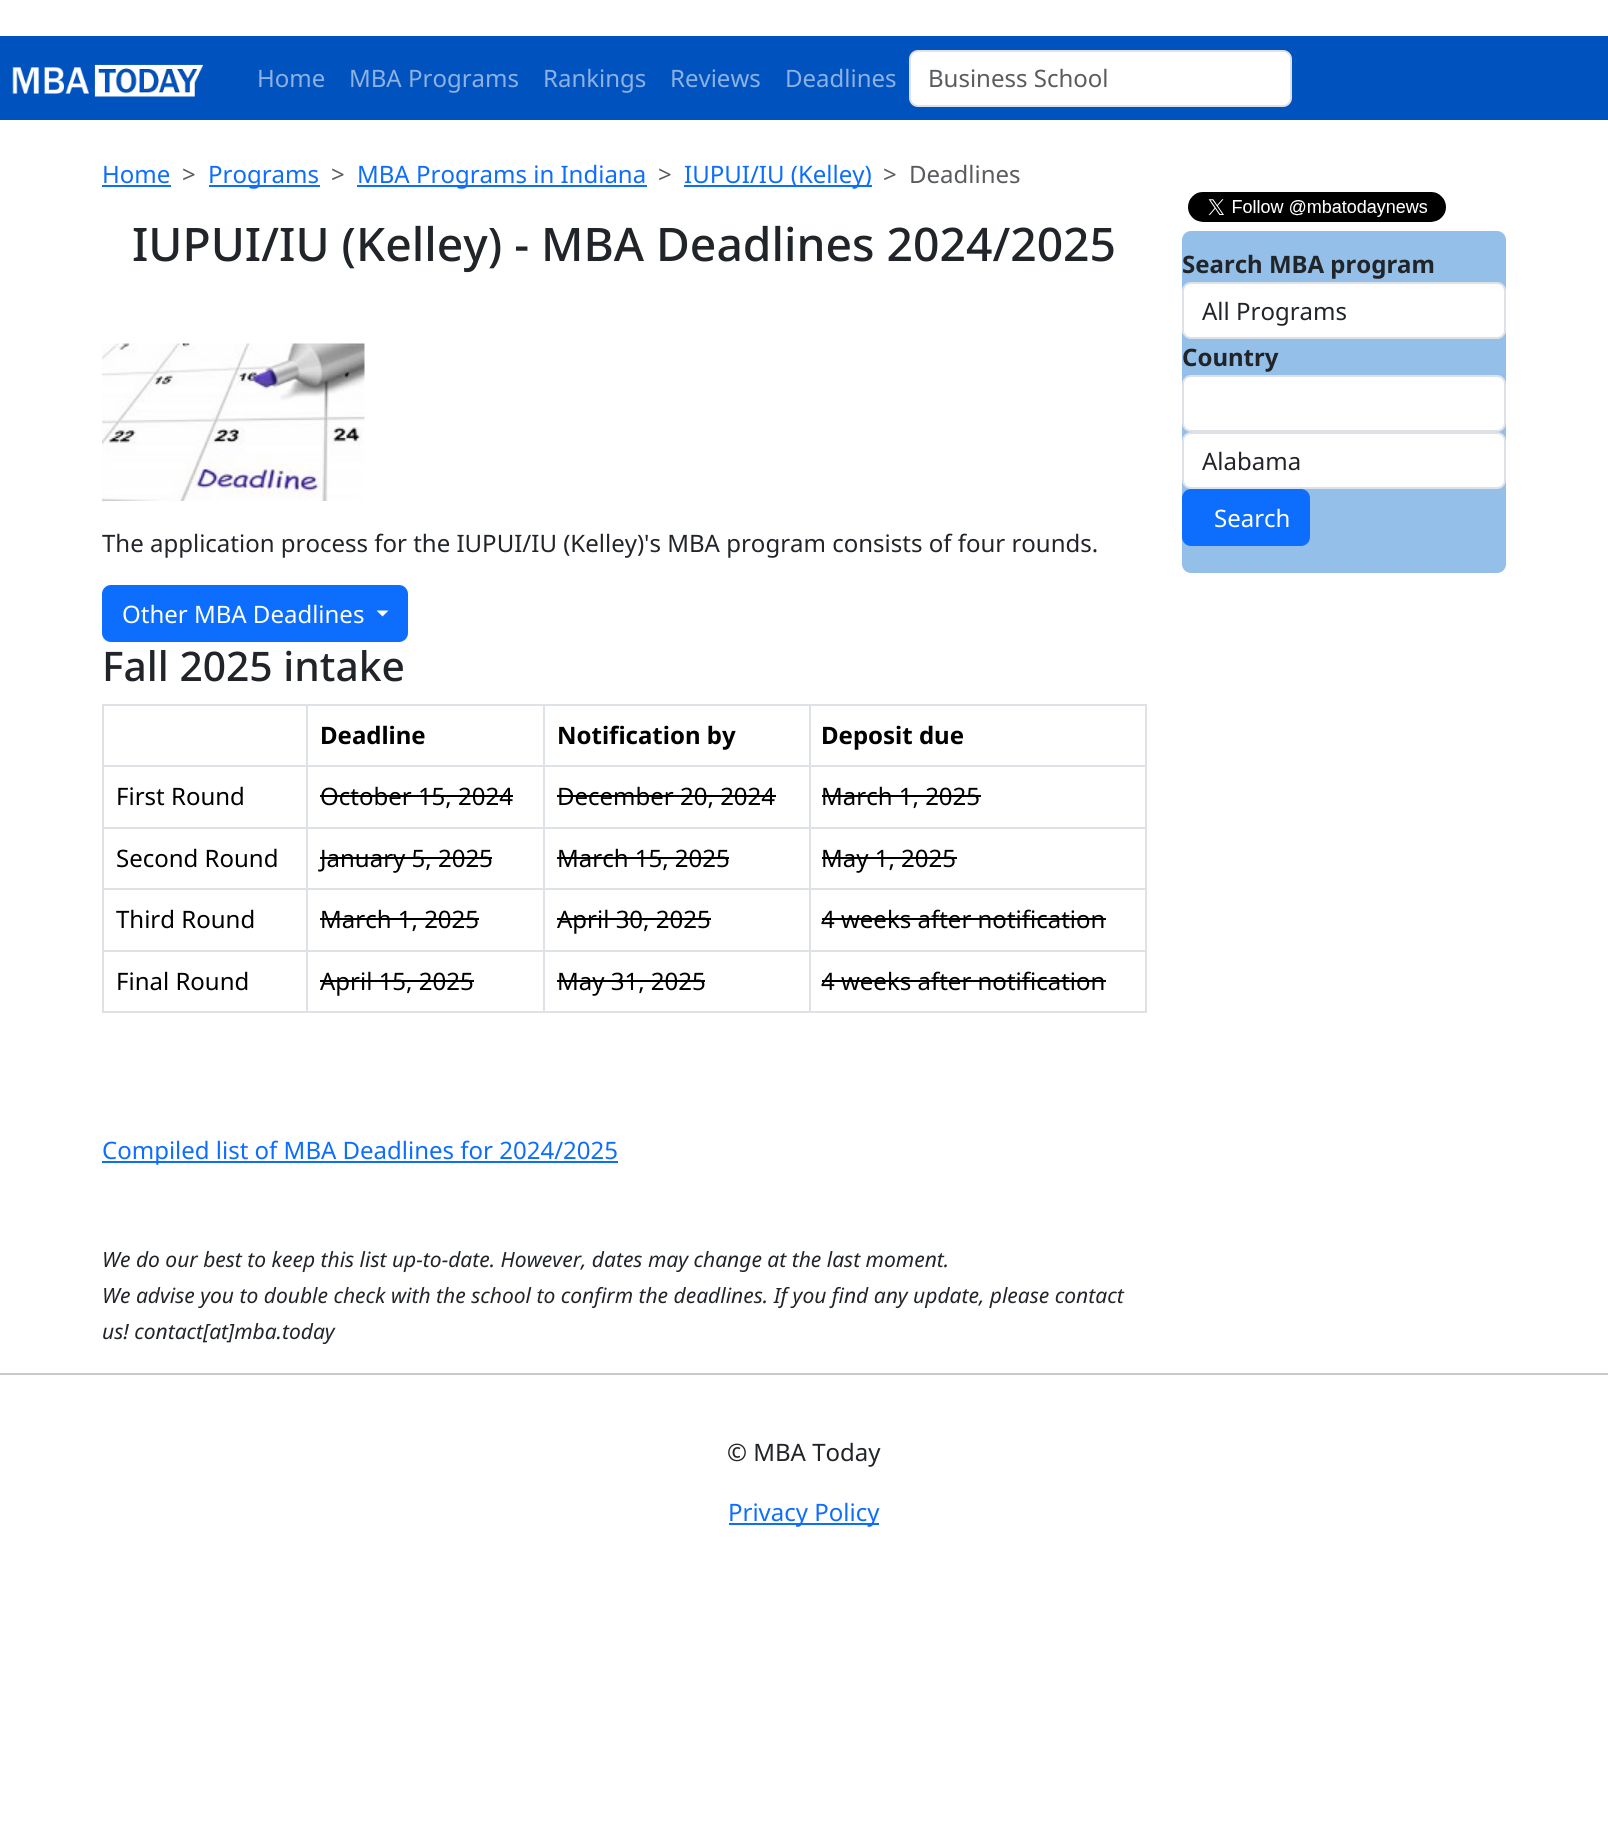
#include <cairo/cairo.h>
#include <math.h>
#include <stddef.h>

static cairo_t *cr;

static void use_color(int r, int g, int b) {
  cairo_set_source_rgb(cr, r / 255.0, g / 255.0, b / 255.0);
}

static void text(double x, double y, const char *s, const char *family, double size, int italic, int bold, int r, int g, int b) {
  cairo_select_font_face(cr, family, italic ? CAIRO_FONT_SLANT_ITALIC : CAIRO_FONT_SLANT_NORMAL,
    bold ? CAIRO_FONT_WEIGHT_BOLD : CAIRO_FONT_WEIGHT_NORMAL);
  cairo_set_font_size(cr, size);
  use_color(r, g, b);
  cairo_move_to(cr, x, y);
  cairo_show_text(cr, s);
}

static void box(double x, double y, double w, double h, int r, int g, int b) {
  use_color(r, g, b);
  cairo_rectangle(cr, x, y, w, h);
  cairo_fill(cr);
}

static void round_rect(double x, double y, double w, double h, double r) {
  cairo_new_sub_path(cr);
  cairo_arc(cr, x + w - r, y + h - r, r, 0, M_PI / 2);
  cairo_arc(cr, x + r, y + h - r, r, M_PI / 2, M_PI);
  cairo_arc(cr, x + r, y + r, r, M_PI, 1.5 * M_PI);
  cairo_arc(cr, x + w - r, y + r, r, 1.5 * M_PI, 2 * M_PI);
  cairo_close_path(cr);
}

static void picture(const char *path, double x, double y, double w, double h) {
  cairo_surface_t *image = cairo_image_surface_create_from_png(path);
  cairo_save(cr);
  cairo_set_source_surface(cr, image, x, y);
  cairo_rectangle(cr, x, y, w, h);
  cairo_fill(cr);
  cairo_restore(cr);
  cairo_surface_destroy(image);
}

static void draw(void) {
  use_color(255, 255, 255);
  cairo_paint(cr);
  box(0, 36, 1608, 84, 0, 82, 191);
  picture("img_01.png", 12, 64, 191, 33);
  use_color(255, 255, 255);
  round_rect(910, 51, 381, 55, 8);
  cairo_fill_preserve(cr);
  use_color(222, 226, 230);
  cairo_stroke(cr);
  box(102, 185, 69, 2, 13, 110, 253);
  box(209, 185, 111, 2, 13, 110, 253);
  box(357, 185, 290, 2, 13, 110, 253);
  box(684, 185, 188, 2, 13, 110, 253);
  picture("img_02.png", 102, 343, 263, 158);
  round_rect(103, 586, 304, 55, 8);
  cairo_fill_preserve(cr);
  cairo_stroke(cr);
  use_color(255, 255, 255);
  cairo_new_path(cr);
  cairo_move_to(cr, 376.5, 610.5);
  cairo_line_to(cr, 388.5, 610.5);
  cairo_line_to(cr, 382.5, 616.5);
  cairo_close_path(cr);
  cairo_fill(cr);
  box(102, 704, 1044, 2, 222, 226, 230);
  box(102, 765, 1044, 2, 222, 226, 230);
  box(320, 795, 193, 2, 0, 0, 0);
  box(557, 795, 219, 2, 0, 0, 0);
  box(822, 795, 159, 2, 0, 0, 0);
  box(102, 827, 1044, 2, 222, 226, 230);
  box(320, 857, 172, 2, 0, 0, 0);
  box(557, 857, 172, 2, 0, 0, 0);
  box(822, 857, 135, 2, 0, 0, 0);
  box(102, 888, 1044, 2, 222, 226, 230);
  box(320, 918, 159, 2, 0, 0, 0);
  box(557, 918, 154, 2, 0, 0, 0);
  box(822, 918, 284, 2, 0, 0, 0);
  box(102, 950, 1044, 2, 222, 226, 230);
  box(102, 1011, 1044, 2, 222, 226, 230);
  box(102, 704, 2, 309, 222, 226, 230);
  box(306, 704, 2, 309, 222, 226, 230);
  box(320, 980, 154, 2, 0, 0, 0);
  box(543, 704, 2, 309, 222, 226, 230);
  box(557, 980, 148, 2, 0, 0, 0);
  box(1145, 704, 2, 309, 222, 226, 230);
  box(809, 704, 2, 309, 222, 226, 230);
  box(822, 980, 284, 2, 0, 0, 0);
  box(102, 1161, 516, 2, 13, 110, 253);
  picture("img_03.png", 1188, 192, 258, 30);
  use_color(148, 191, 233);
  round_rect(1182, 231, 324, 342, 9);
  cairo_fill(cr);
  use_color(255, 255, 255);
  round_rect(1183, 283, 322, 55, 8);
  cairo_fill_preserve(cr);
  use_color(222, 226, 230);
  cairo_stroke(cr);
  use_color(255, 255, 255);
  round_rect(1183, 376, 322, 55, 8);
  cairo_fill_preserve(cr);
  use_color(222, 226, 230);
  cairo_stroke(cr);
  use_color(255, 255, 255);
  round_rect(1183, 433, 322, 55, 8);
  cairo_fill_preserve(cr);
  use_color(222, 226, 230);
  cairo_stroke(cr);
  use_color(13, 110, 253);
  round_rect(1183, 490, 126, 55, 8);
  cairo_fill_preserve(cr);
  cairo_stroke(cr);
  box(0, 1373, 1608, 2, 200, 201, 202);
  box(729, 1523, 150, 2, 13, 110, 253);
  text(257, 87, "Home", "Noto Sans", 24, 0, 0, 140, 177, 226);
  text(349, 87, "MBA Programs", "Noto Sans", 24, 0, 0, 140, 177, 226);
  text(543, 87, "Rankings", "Noto Sans", 24, 0, 0, 140, 177, 226);
  text(670, 87, "Reviews", "Noto Sans", 24, 0, 0, 140, 177, 226);
  text(785, 87, "Deadlines", "Noto Sans", 24, 0, 0, 140, 177, 226);
  text(928, 87, "Business School", "Noto Sans", 24, 0, 0, 89, 92, 95);
  text(102, 183, "Home", "Noto Sans", 24, 0, 0, 13, 110, 253);
  text(182, 183, ">", "Noto Sans", 24, 0, 0, 89, 92, 95);
  text(208, 183, "Programs", "Noto Sans", 24, 0, 0, 13, 110, 253);
  text(331, 183, ">", "Noto Sans", 24, 0, 0, 89, 92, 95);
  text(357, 183, "MBA Programs in Indiana", "Noto Sans", 24, 0, 0, 13, 110, 253);
  text(658, 183, ">", "Noto Sans", 24, 0, 0, 89, 92, 95);
  text(684, 183, "IUPUI/IU (Kelley)", "Noto Sans", 24, 0, 0, 13, 110, 253);
  text(883, 183, ">", "Noto Sans", 24, 0, 0, 89, 92, 95);
  text(909, 183, "Deadlines", "Noto Sans", 24, 0, 0, 89, 92, 95);
  text(132, 261, "IUPUI/IU (Kelley) - MBA Deadlines 2024/2025", "Noto Sans Medium", 46.25, 0, 0, 33, 37, 41);
  text(102, 552, "The application process for the IUPUI/IU (Kelley)'s MBA program consists of four rounds.", "Noto Sans", 24, 0, 0, 33, 37, 41);
  text(122, 623, "Other MBA Deadlines", "Noto Sans", 24, 0, 0, 255, 255, 255);
  text(102, 681, "Fall 2025 intake", "Noto Sans Medium", 40.75, 0, 0, 33, 37, 41);
  text(320, 744, "Deadline", "Noto Sans", 24, 0, 1, 0, 0, 0);
  text(557, 744, "Notification by", "Noto Sans", 24, 0, 1, 0, 0, 0);
  text(821, 744, "Deposit due", "Noto Sans", 24, 0, 1, 0, 0, 0);
  text(116, 805, "First Round", "Noto Sans", 24, 0, 0, 0, 0, 0);
  text(320, 805, "October 15, 2024", "Noto Sans", 24, 0, 0, 0, 0, 0);
  text(557, 805, "December 20, 2024", "Noto Sans", 24, 0, 0, 0, 0, 0);
  text(821, 805, "March 1, 2025", "Noto Sans", 24, 0, 0, 0, 0, 0);
  text(116, 867, "Second Round", "Noto Sans", 24, 0, 0, 0, 0, 0);
  text(320, 867, "January 5, 2025", "Noto Sans", 24, 0, 0, 0, 0, 0);
  text(557, 867, "March 15, 2025", "Noto Sans", 24, 0, 0, 0, 0, 0);
  text(821, 867, "May 1, 2025", "Noto Sans", 24, 0, 0, 0, 0, 0);
  text(116, 928, "Third Round", "Noto Sans", 24, 0, 0, 0, 0, 0);
  text(320, 928, "March 1, 2025", "Noto Sans", 24, 0, 0, 0, 0, 0);
  text(557, 928, "April 30, 2025", "Noto Sans", 24, 0, 0, 0, 0, 0);
  text(821, 928, "4 weeks after notification", "Noto Sans", 24, 0, 0, 0, 0, 0);
  text(116, 990, "Final Round", "Noto Sans", 24, 0, 0, 0, 0, 0);
  text(320, 990, "April 15, 2025", "Noto Sans", 24, 0, 0, 0, 0, 0);
  text(557, 990, "May 31, 2025", "Noto Sans", 24, 0, 0, 0, 0, 0);
  text(821, 990, "4 weeks after notification", "Noto Sans", 24, 0, 0, 0, 0, 0);
  text(102, 1159, "Compiled list of MBA Deadlines for 2024/2025", "Noto Sans", 24, 0, 0, 13, 110, 253);
  text(102, 1267, "We do our best to keep this list up-to-date. However, dates may change at the last moment.", "Noto Sans", 21, 1, 0, 33, 37, 41);
  text(102, 1303, "We advise you to double check with the school to confirm the deadlines. If you find any update, please contact", "Noto Sans", 21, 1, 0, 33, 37, 41);
  text(102, 1339, "us! contact[at]mba.today", "Noto Sans", 21, 1, 0, 33, 37, 41);
  text(1182, 273, "Search MBA program", "Noto Sans", 24, 0, 1, 33, 37, 41);
  text(1202, 320, "All Programs", "Noto Sans", 24, 0, 0, 33, 37, 41);
  text(1182, 366, "Country", "Noto Sans", 24, 0, 1, 33, 37, 41);
  text(1202, 470, "Alabama", "Noto Sans", 24, 0, 0, 33, 37, 41);
  text(1214, 527, "Search", "Noto Sans", 24, 0, 0, 255, 255, 255);
  text(727, 1461, "© MBA Today", "Noto Sans", 24, 0, 0, 33, 37, 41);
  text(728, 1521, "Privacy Policy", "Noto Sans", 24, 0, 0, 13, 110, 253);
}

int main(void) {
  cairo_surface_t *surface = cairo_image_surface_create(CAIRO_FORMAT_RGB24, 1608, 1843);
  cr = cairo_create(surface);
  cairo_font_options_t *options = cairo_font_options_create();
  cairo_font_options_set_hint_metrics(options, CAIRO_HINT_METRICS_OFF);
  cairo_font_options_set_hint_style(options, CAIRO_HINT_STYLE_NONE);
  cairo_set_font_options(cr, options);
  cairo_set_miter_limit(cr, 4);
  draw();
  cairo_surface_write_to_png(surface, "out.png");
  cairo_font_options_destroy(options);
  cairo_destroy(cr);
  cairo_surface_destroy(surface);
  return 0;
}
